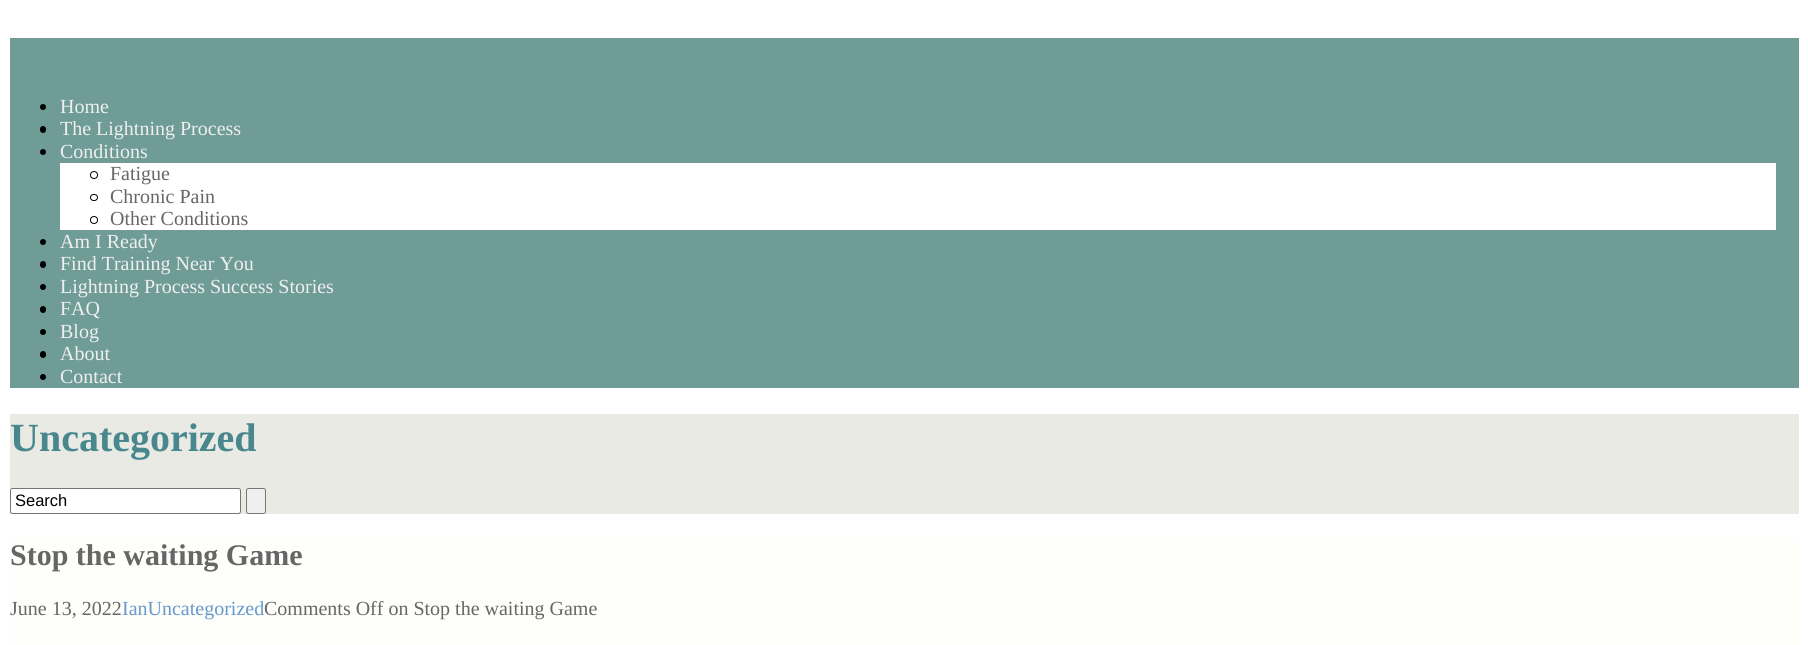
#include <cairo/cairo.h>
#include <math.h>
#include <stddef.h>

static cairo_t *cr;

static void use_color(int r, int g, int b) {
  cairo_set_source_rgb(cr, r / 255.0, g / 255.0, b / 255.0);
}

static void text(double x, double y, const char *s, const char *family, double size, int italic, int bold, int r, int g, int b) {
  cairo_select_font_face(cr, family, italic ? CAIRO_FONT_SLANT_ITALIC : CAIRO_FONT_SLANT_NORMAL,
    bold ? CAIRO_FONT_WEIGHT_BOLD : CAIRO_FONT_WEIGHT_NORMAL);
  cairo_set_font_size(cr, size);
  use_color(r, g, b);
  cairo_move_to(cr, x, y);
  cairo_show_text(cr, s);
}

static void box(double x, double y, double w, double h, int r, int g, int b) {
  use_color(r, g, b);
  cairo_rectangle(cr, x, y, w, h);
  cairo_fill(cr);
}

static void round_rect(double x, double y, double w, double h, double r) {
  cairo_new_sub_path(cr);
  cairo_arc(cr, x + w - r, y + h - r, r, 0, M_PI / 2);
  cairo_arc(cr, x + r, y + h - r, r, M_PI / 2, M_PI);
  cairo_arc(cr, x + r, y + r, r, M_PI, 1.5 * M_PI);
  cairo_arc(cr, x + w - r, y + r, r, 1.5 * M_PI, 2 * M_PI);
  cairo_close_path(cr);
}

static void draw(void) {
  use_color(255, 255, 255);
  cairo_paint(cr);
  box(10, 38, 1789, 350, 111, 156, 151);
  use_color(0, 0, 0);
  cairo_arc(cr, 43, 107, 3, 0, 2 * M_PI);
  cairo_fill(cr);
  round_rect(40, 126, 6, 7, 3);
  cairo_fill(cr);
  cairo_arc(cr, 43, 152, 3, 0, 2 * M_PI);
  cairo_fill(cr);
  box(60, 163, 1716, 67, 255, 255, 255);
  cairo_arc(cr, 94, 175, 3.5, 0, 2 * M_PI);
  use_color(0, 0, 0);
  cairo_set_line_width(cr, 1);
  cairo_stroke(cr);
  round_rect(90.5, 194.5, 7, 6, 3);
  cairo_stroke(cr);
  cairo_arc(cr, 94, 220, 3.5, 0, 2 * M_PI);
  cairo_stroke(cr);
  cairo_arc(cr, 43, 242, 3, 0, 2 * M_PI);
  cairo_fill(cr);
  round_rect(40, 261, 6, 7, 3);
  cairo_fill(cr);
  cairo_arc(cr, 43, 287, 3, 0, 2 * M_PI);
  cairo_fill(cr);
  round_rect(40, 306, 6, 7, 3);
  cairo_fill(cr);
  cairo_arc(cr, 43, 332, 3, 0, 2 * M_PI);
  cairo_fill(cr);
  round_rect(40, 351, 6, 7, 3);
  cairo_fill(cr);
  cairo_arc(cr, 43, 377, 3, 0, 2 * M_PI);
  cairo_fill(cr);
  box(10, 414, 1789, 100, 234, 234, 229);
  use_color(255, 255, 255);
  round_rect(10.5, 488.5, 230, 25, 2);
  cairo_fill_preserve(cr);
  use_color(118, 118, 118);
  cairo_stroke(cr);
  use_color(239, 239, 239);
  round_rect(246.5, 488.5, 19, 25, 2);
  cairo_fill_preserve(cr);
  use_color(118, 118, 118);
  cairo_stroke(cr);
  box(10, 539, 1789, 106, 254, 254, 250);
  text(60, 113, "Home", "Liberation Serif", 20, 0, 0, 239, 239, 239);
  text(60, 135, "The Lightning Process", "Liberation Serif", 20, 0, 0, 239, 239, 239);
  text(60, 158, "Conditions", "Liberation Serif", 20, 0, 0, 239, 239, 239);
  text(110, 180, "Fatigue", "Liberation Serif", 20, 0, 0, 102, 102, 102);
  text(110, 203, "Chronic Pain", "Liberation Serif", 20, 0, 0, 102, 102, 102);
  text(110, 225, "Other Conditions", "Liberation Serif", 20, 0, 0, 102, 102, 102);
  text(60, 248, "Am I Ready", "Liberation Serif", 20, 0, 0, 239, 239, 239);
  text(60, 270, "Find Training Near You", "Liberation Serif", 20, 0, 0, 239, 239, 239);
  text(60, 293, "Lightning Process Success Stories", "Liberation Serif", 20, 0, 0, 239, 239, 239);
  text(60, 315, "FAQ", "Liberation Serif", 20, 0, 0, 239, 239, 239);
  text(60, 338, "Blog", "Liberation Serif", 20, 0, 0, 239, 239, 239);
  text(60, 360, "About", "Liberation Serif", 20, 0, 0, 239, 239, 239);
  text(60, 383, "Contact", "Liberation Serif", 20, 0, 0, 239, 239, 239);
  text(10, 451, "Uncategorized", "Liberation Serif", 40, 0, 1, 73, 135, 143);
  text(15, 506, "Search", "Liberation Sans", 16.5, 0, 0, 0, 0, 0);
  text(10, 565, "Stop the waiting Game", "Liberation Serif", 30, 0, 1, 102, 102, 102);
  text(10, 615, "June 13, 2022", "Liberation Serif", 20, 0, 0, 102, 102, 102);
  text(122, 615, "IanUncategorized", "Liberation Serif", 20, 0, 0, 102, 153, 204);
  text(264, 615, "Comments Off on Stop the waiting Game", "Liberation Serif", 20, 0, 0, 102, 102, 102);
}

int main(void) {
  cairo_surface_t *surface = cairo_image_surface_create(CAIRO_FORMAT_RGB24, 1808, 645);
  cr = cairo_create(surface);
  cairo_font_options_t *options = cairo_font_options_create();
  cairo_font_options_set_hint_metrics(options, CAIRO_HINT_METRICS_OFF);
  cairo_font_options_set_hint_style(options, CAIRO_HINT_STYLE_NONE);
  cairo_set_font_options(cr, options);
  cairo_set_miter_limit(cr, 4);
  draw();
  cairo_surface_write_to_png(surface, "out.png");
  cairo_font_options_destroy(options);
  cairo_destroy(cr);
  cairo_surface_destroy(surface);
  return 0;
}
